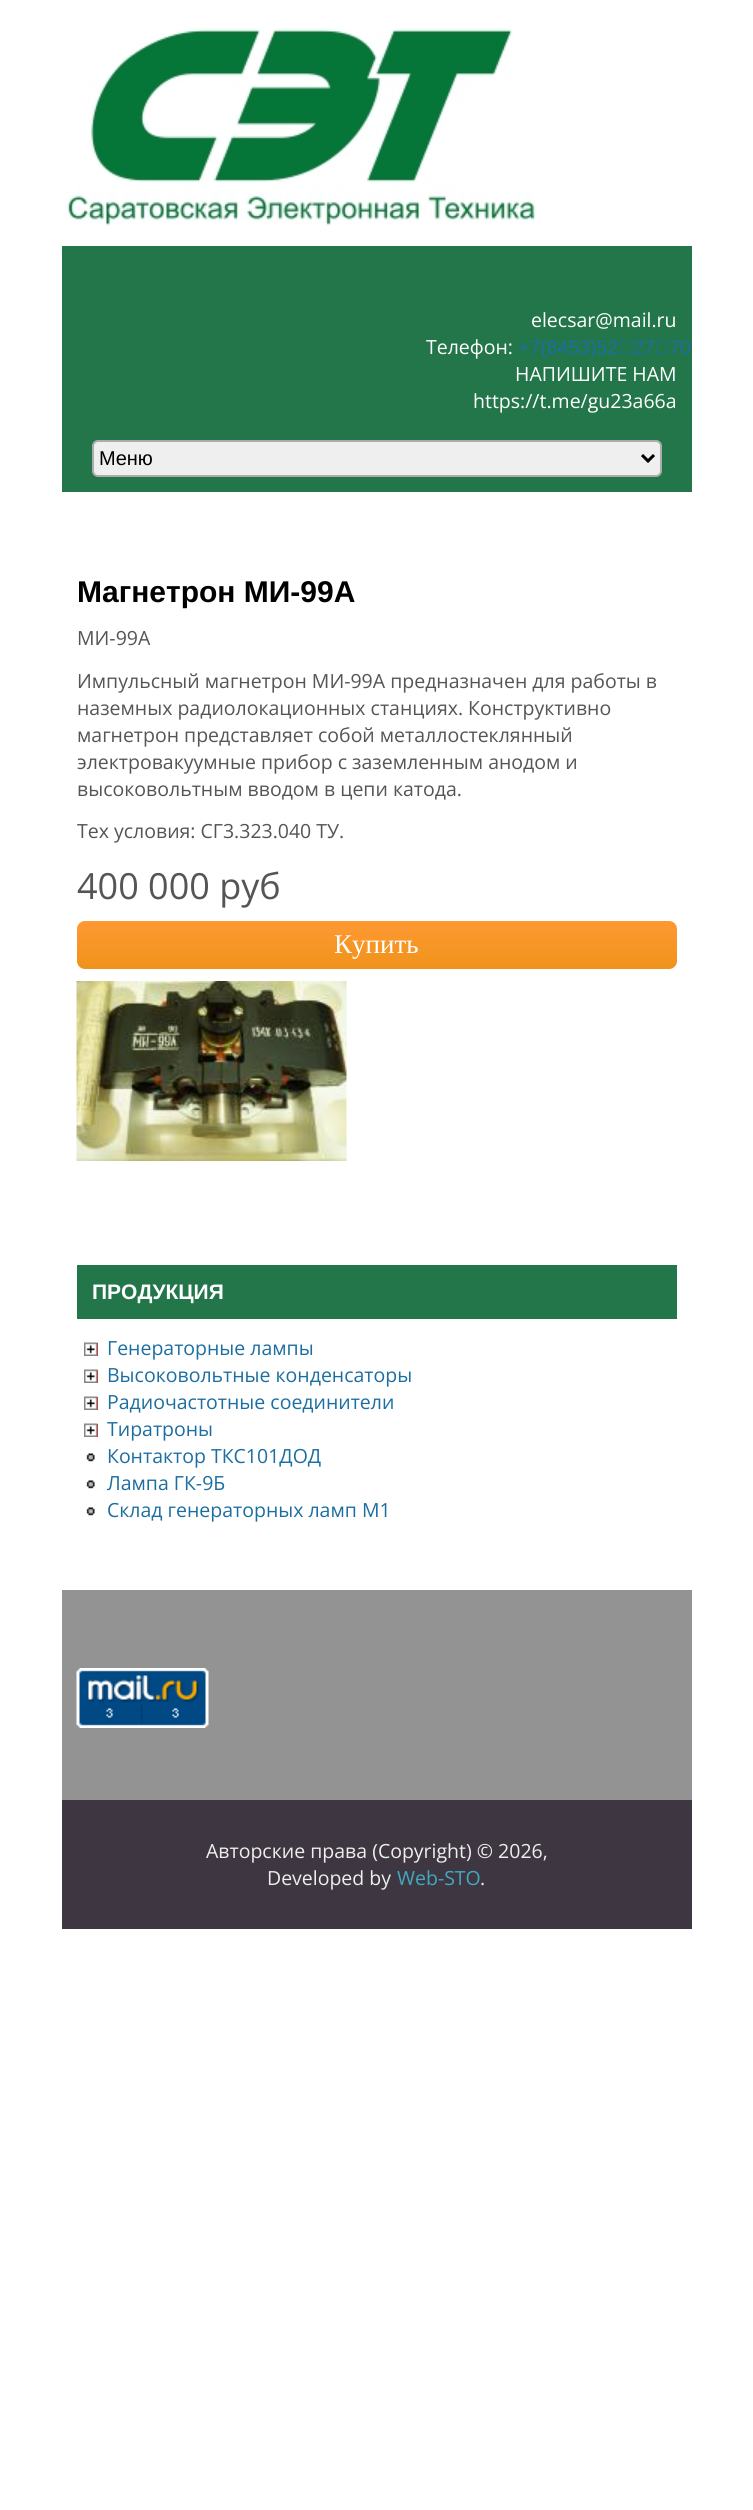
#include <cairo/cairo.h>
#include <math.h>
#include <stddef.h>

static cairo_t *cr;

static void use_color(int r, int g, int b) {
  cairo_set_source_rgb(cr, r / 255.0, g / 255.0, b / 255.0);
}

static void text(double x, double y, const char *s, const char *family, double size, int italic, int bold, int r, int g, int b) {
  cairo_select_font_face(cr, family, italic ? CAIRO_FONT_SLANT_ITALIC : CAIRO_FONT_SLANT_NORMAL,
    bold ? CAIRO_FONT_WEIGHT_BOLD : CAIRO_FONT_WEIGHT_NORMAL);
  cairo_set_font_size(cr, size);
  use_color(r, g, b);
  cairo_move_to(cr, x, y);
  cairo_show_text(cr, s);
}

static void box(double x, double y, double w, double h, int r, int g, int b) {
  use_color(r, g, b);
  cairo_rectangle(cr, x, y, w, h);
  cairo_fill(cr);
}

static void round_rect(double x, double y, double w, double h, double r) {
  cairo_new_sub_path(cr);
  cairo_arc(cr, x + w - r, y + h - r, r, 0, M_PI / 2);
  cairo_arc(cr, x + r, y + h - r, r, M_PI / 2, M_PI);
  cairo_arc(cr, x + r, y + r, r, M_PI, 1.5 * M_PI);
  cairo_arc(cr, x + w - r, y + r, r, 1.5 * M_PI, 2 * M_PI);
  cairo_close_path(cr);
}

static void picture(const char *path, double x, double y, double w, double h) {
  cairo_surface_t *image = cairo_image_surface_create_from_png(path);
  cairo_save(cr);
  cairo_set_source_surface(cr, image, x, y);
  cairo_rectangle(cr, x, y, w, h);
  cairo_fill(cr);
  cairo_restore(cr);
  cairo_surface_destroy(image);
}

static void draw(void) {
  cairo_pattern_t *gradient;
  use_color(255, 255, 255);
  cairo_paint(cr);
  picture("img_01.png", 67, 29, 469, 197);
  box(62, 246, 630, 246, 35, 118, 74);
  use_color(239, 239, 239);
  round_rect(93, 441, 568, 35, 5);
  cairo_fill_preserve(cr);
  use_color(172, 172, 172);
  cairo_stroke(cr);
  cairo_new_path(cr);
  cairo_move_to(cr, 642, 455);
  cairo_line_to(cr, 648, 461);
  cairo_line_to(cr, 654, 455);
  use_color(0, 0, 0);
  cairo_set_line_width(cr, 3);
  cairo_stroke(cr);
  gradient = cairo_pattern_create_linear(377, 921, 377, 969);
  cairo_pattern_add_color_stop_rgba(gradient, 0, 1, 0.6, 0.2, 1);
  cairo_pattern_add_color_stop_rgba(gradient, 1, 0.937, 0.576, 0.102, 1);
  cairo_set_source(cr, gradient);
  cairo_pattern_destroy(gradient);
  round_rect(77, 921, 600, 48, 8);
  cairo_fill(cr);
  picture("img_02.png", 76, 981, 271, 180);
  box(77, 1265, 600, 54, 35, 118, 74);
  box(97, 1343, 1, 13, 255, 0, 0);
  picture("img_03.png", 84, 1342, 14, 14);
  box(97, 1370, 1, 13, 255, 0, 0);
  picture("img_03.png", 84, 1369, 14, 14);
  box(97, 1397, 1, 13, 255, 0, 0);
  picture("img_03.png", 84, 1396, 14, 14);
  box(97, 1424, 1, 13, 255, 0, 0);
  picture("img_03.png", 84, 1423, 14, 14);
  picture("img_04.png", 86, 1453, 9, 9);
  picture("img_04.png", 86, 1480, 9, 9);
  picture("img_04.png", 86, 1507, 9, 9);
  box(62, 1590, 630, 210, 147, 147, 147);
  picture("img_05.png", 76, 1668, 133, 60);
  box(62, 1800, 630, 129, 62, 55, 66);
  text(531, 327, "elecsar@mail.ru", "Open Sans", 19.5, 0, 0, 255, 255, 255);
  text(426, 354, "Телефон:", "Open Sans", 19.5, 0, 0, 255, 255, 255);
  text(518, 354, "+7(8453)52‑27‑70", "Liberation Sans", 19.5, 0, 0, 28, 110, 160);
  text(515, 381, "НАПИШИТЕ НАМ", "Open Sans", 19.5, 0, 0, 255, 255, 255);
  text(473, 408, "https://t.me/gu23a66a", "Open Sans", 19.5, 0, 0, 255, 255, 255);
  text(99, 465, "Меню", "Liberation Sans", 20, 0, 0, 0, 0, 0);
  text(77, 602, "Магнетрон МИ-99А", "Liberation Sans", 30, 0, 1, 0, 0, 0);
  text(77, 645, "МИ-99А", "Open Sans", 19.5, 0, 0, 85, 85, 85);
  text(77, 688, "Импульсный магнетрон МИ-99А предназначен для работы в", "Open Sans", 19.5, 0, 0, 85, 85, 85);
  text(77, 715, "наземных радиолокационных станциях. Конструктивно", "Open Sans", 19.5, 0, 0, 85, 85, 85);
  text(77, 742, "магнетрон представляет собой металлостеклянный", "Open Sans", 19.5, 0, 0, 85, 85, 85);
  text(77, 769, "электровакуумные прибор с заземленным анодом и", "Open Sans", 19.5, 0, 0, 85, 85, 85);
  text(77, 796, "высоковольтным вводом в цепи катода.", "Open Sans", 19.5, 0, 0, 85, 85, 85);
  text(77, 838, "Тех условия: СГ3.323.040 ТУ.", "Open Sans", 19.5, 0, 0, 85, 85, 85);
  text(77, 899, "400 000 руб", "Open Sans", 36, 0, 0, 85, 85, 85);
  text(334, 953, "Купить", "Liberation Serif", 27, 0, 0, 255, 255, 255);
  text(92, 1299, "ПРОДУКЦИЯ", "Liberation Sans", 21, 0, 1, 255, 255, 255);
  text(107, 1355, "Генераторные лампы", "Open Sans", 19.5, 0, 0, 28, 110, 160);
  text(107, 1382, "Высоковольтные конденсаторы", "Open Sans", 19.5, 0, 0, 28, 110, 160);
  text(107, 1409, "Радиочастотные соединители", "Open Sans", 19.5, 0, 0, 28, 110, 160);
  text(107, 1436, "Тиратроны", "Open Sans", 19.5, 0, 0, 28, 110, 160);
  text(107, 1463, "Контактор ТКС101ДОД", "Open Sans", 19.5, 0, 0, 28, 110, 160);
  text(107, 1490, "Лампа ГК-9Б", "Open Sans", 19.5, 0, 0, 28, 110, 160);
  text(107, 1517, "Склад генераторных ламп М1", "Open Sans", 19.5, 0, 0, 28, 110, 160);
  text(206, 1858, "Авторские права (Copyright) © 2026,", "Open Sans", 19.5, 0, 0, 238, 238, 238);
  text(267, 1885, "Developed by", "Open Sans", 19.5, 0, 0, 238, 238, 238);
  text(397, 1885, "Web-STO", "Open Sans", 19.5, 0, 0, 66, 169, 190);
  text(480, 1885, ".", "Open Sans", 19.5, 0, 0, 238, 238, 238);
}

int main(void) {
  cairo_surface_t *surface = cairo_image_surface_create(CAIRO_FORMAT_RGB24, 753, 2510);
  cr = cairo_create(surface);
  cairo_font_options_t *options = cairo_font_options_create();
  cairo_font_options_set_hint_metrics(options, CAIRO_HINT_METRICS_OFF);
  cairo_font_options_set_hint_style(options, CAIRO_HINT_STYLE_NONE);
  cairo_set_font_options(cr, options);
  cairo_set_miter_limit(cr, 4);
  draw();
  cairo_surface_write_to_png(surface, "out.png");
  cairo_font_options_destroy(options);
  cairo_destroy(cr);
  cairo_surface_destroy(surface);
  return 0;
}
